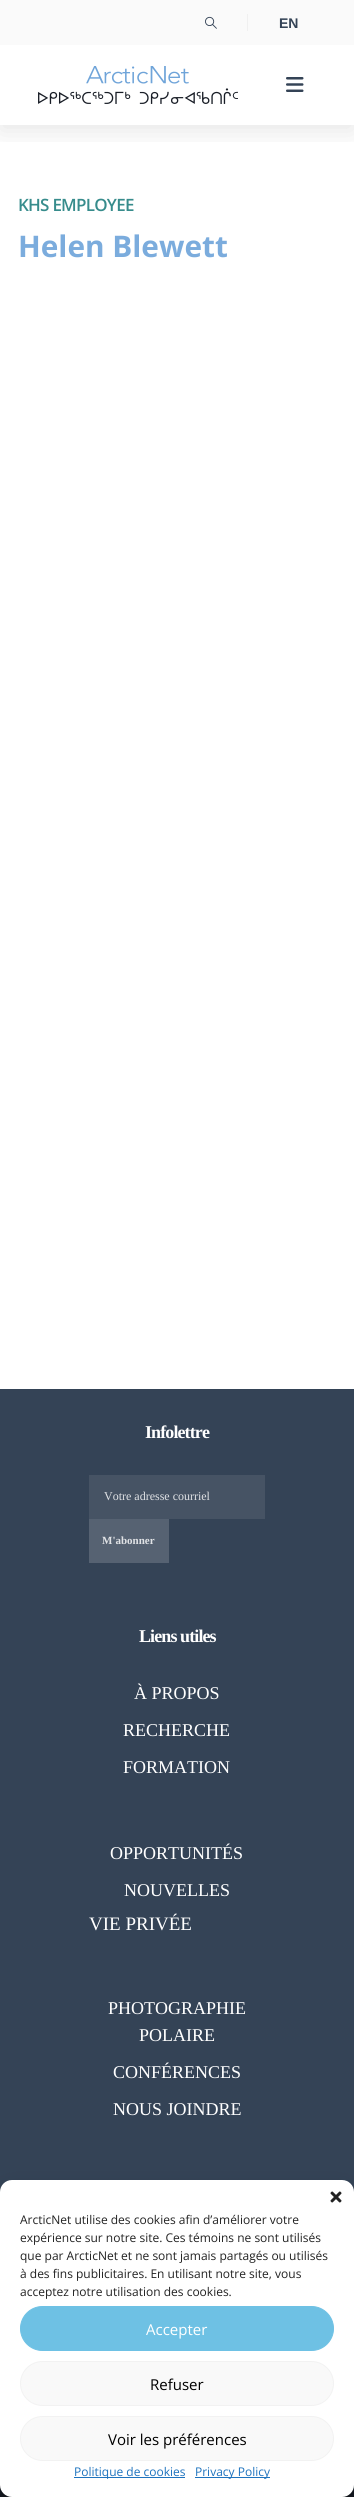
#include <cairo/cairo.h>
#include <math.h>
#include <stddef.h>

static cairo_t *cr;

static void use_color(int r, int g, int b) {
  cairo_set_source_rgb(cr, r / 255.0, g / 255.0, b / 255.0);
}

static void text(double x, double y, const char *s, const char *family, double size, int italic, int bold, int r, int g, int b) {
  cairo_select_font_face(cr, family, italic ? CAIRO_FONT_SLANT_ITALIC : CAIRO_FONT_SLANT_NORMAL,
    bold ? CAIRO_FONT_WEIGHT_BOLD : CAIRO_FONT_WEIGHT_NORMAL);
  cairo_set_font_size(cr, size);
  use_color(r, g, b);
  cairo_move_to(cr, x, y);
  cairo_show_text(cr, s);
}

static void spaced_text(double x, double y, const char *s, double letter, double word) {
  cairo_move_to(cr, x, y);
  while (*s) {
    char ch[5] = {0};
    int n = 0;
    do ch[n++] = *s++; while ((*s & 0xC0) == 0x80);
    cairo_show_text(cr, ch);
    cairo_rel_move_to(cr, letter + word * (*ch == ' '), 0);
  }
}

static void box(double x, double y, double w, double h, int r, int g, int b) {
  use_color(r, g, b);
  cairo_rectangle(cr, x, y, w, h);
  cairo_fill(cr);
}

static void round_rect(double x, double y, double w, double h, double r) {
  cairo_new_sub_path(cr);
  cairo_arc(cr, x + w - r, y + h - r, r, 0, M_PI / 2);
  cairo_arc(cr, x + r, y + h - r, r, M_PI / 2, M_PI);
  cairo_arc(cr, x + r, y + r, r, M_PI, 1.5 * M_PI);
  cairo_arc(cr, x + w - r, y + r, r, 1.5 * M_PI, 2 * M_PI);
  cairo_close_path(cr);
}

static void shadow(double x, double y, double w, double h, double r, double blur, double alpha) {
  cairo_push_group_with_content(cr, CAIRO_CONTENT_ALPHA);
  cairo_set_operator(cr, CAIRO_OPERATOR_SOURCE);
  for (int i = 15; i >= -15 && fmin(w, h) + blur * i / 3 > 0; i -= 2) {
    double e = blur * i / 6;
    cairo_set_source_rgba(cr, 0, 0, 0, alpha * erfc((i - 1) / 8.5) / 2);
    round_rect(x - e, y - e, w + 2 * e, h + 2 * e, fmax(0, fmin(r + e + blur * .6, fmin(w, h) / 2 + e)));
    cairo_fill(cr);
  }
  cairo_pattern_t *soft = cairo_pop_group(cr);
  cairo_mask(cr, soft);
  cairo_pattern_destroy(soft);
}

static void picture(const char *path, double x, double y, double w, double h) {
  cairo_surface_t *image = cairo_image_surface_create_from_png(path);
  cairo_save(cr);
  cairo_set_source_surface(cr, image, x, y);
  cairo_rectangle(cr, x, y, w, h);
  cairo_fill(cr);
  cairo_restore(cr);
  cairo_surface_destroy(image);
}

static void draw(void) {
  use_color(255, 255, 255);
  cairo_paint(cr);
  cairo_save(cr);
  cairo_rectangle(cr, 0, 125, 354, 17);
  cairo_clip(cr);
  use_color(0, 0, 0);
  shadow(0, 6, 354, 125, 0, 13, 0.1);
  cairo_restore(cr);
  box(0, 0, 354, 45, 250, 250, 250);
  picture("img_01.png", 205, 16, 12, 13);
  box(247, 14, 1, 17, 240, 240, 240);
  picture("img_02.png", 38, 66, 200, 38);
  picture("img_03.png", 286, 77, 18, 15);
  box(0, 1389, 354, 803, 52, 67, 86);
  box(89, 1475, 176, 44, 70, 83, 100);
  box(89, 1519, 80, 44, 86, 98, 114);
  box(0, 2485, 354, 12, 24, 29, 38);
  use_color(0, 0, 0);
  shadow(0, 2186, 354, 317, 12, 3, 0.23);
  shadow(0, 2190, 354, 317, 12, 10, 0.19);
  use_color(255, 255, 255);
  round_rect(0, 2180, 354, 317, 12);
  cairo_fill(cr);
  picture("img_04.png", 330, 2191, 12, 12);
  use_color(110, 193, 228);
  round_rect(20.5, 2306.5, 313, 44, 22);
  cairo_fill_preserve(cr);
  cairo_set_line_width(cr, 1);
  cairo_stroke(cr);
  use_color(249, 249, 249);
  round_rect(20.5, 2361.5, 313, 44, 22);
  cairo_fill_preserve(cr);
  use_color(242, 242, 242);
  cairo_stroke(cr);
  use_color(249, 249, 249);
  round_rect(20.5, 2416.5, 313, 44, 22);
  cairo_fill_preserve(cr);
  use_color(242, 242, 242);
  cairo_stroke(cr);
  box(74, 2477, 111, 1, 30, 115, 190);
  box(195, 2477, 75, 1, 30, 115, 190);
  text(279, 28, "EN", "Liberation Sans", 14, 0, 1, 52, 67, 86);
  cairo_select_font_face(cr, "Open Sans SemiBold", CAIRO_FONT_SLANT_NORMAL, CAIRO_FONT_WEIGHT_NORMAL);
  cairo_set_font_size(cr, 17);
  use_color(55, 140, 140);
  spaced_text(18, 211, "KHS EMPLOYEE", -0.75, 0);
  text(18, 257, "Helen Blewett", "Open Sans", 29.75, 0, 1, 123, 172, 221);
  cairo_select_font_face(cr, "Liberation Serif", CAIRO_FONT_SLANT_NORMAL, CAIRO_FONT_WEIGHT_BOLD);
  cairo_set_font_size(cr, 18);
  use_color(255, 255, 255);
  spaced_text(145, 1438, "Infolettre", -0.9, 0);
  text(104, 1500, "Votre adresse courriel", "Liberation Serif", 12, 0, 0, 225, 227, 230);
  text(102, 1544, "M'abonner", "Liberation Serif", 11, 0, 1, 225, 227, 230);
  cairo_set_font_size(cr, 18);
  use_color(255, 255, 255);
  spaced_text(139, 1642, "Liens utiles", -0.9, 0);
  text(134, 1699, "À PROPOS", "Liberation Serif", 18, 0, 0, 255, 255, 255);
  text(123, 1736, "RECHERCHE", "Liberation Serif", 18, 0, 0, 255, 255, 255);
  text(123, 1773, "FORMATION", "Liberation Serif", 18, 0, 0, 255, 255, 255);
  text(110, 1859, "OPPORTUNITÉS", "Liberation Serif", 18, 0, 0, 255, 255, 255);
  text(124, 1896, "NOUVELLES", "Liberation Serif", 18, 0, 0, 255, 255, 255);
  text(89, 1930, "VIE PRIVÉE", "Liberation Serif", 19, 0, 0, 255, 255, 255);
  text(108, 2014, "PHOTOGRAPHIE", "Liberation Serif", 18, 0, 0, 255, 255, 255);
  text(139, 2041, "POLAIRE", "Liberation Serif", 18, 0, 0, 255, 255, 255);
  text(113, 2078, "CONFÉRENCES", "Liberation Serif", 18, 0, 0, 255, 255, 255);
  text(113, 2115, "NOUS JOINDRE", "Liberation Serif", 18, 0, 0, 255, 255, 255);
  text(20, 2224, "ArcticNet utilise des cookies afin d’améliorer votre", "Open Sans", 12, 0, 0, 34, 34, 34);
  text(20, 2242, "expérience sur notre site. Ces témoins ne sont utilisés", "Open Sans", 12, 0, 0, 34, 34, 34);
  text(20, 2260, "que par ArcticNet et ne sont jamais partagés ou utilisés", "Open Sans", 12, 0, 0, 34, 34, 34);
  text(20, 2278, "à des fins publicitaires. En utilisant notre site, vous", "Open Sans", 12, 0, 0, 34, 34, 34);
  text(20, 2296, "acceptez notre utilisation des cookies.", "Open Sans", 12, 0, 0, 34, 34, 34);
  text(146, 2335, "Accepter", "Open Sans", 15, 0, 0, 255, 255, 255);
  text(150, 2390, "Refuser", "Open Sans", 15, 0, 0, 0, 0, 0);
  text(108, 2445, "Voir les préférences", "Open Sans", 15, 0, 0, 0, 0, 0);
  text(74, 2476, "Politique de cookies", "Open Sans", 12, 0, 0, 30, 115, 190);
  text(195, 2476, "Privacy Policy", "Open Sans", 12, 0, 0, 30, 115, 190);
}

int main(void) {
  cairo_surface_t *surface = cairo_image_surface_create(CAIRO_FORMAT_RGB24, 354, 2497);
  cr = cairo_create(surface);
  cairo_font_options_t *options = cairo_font_options_create();
  cairo_font_options_set_hint_metrics(options, CAIRO_HINT_METRICS_OFF);
  cairo_font_options_set_hint_style(options, CAIRO_HINT_STYLE_NONE);
  cairo_set_font_options(cr, options);
  cairo_set_miter_limit(cr, 4);
  draw();
  cairo_surface_write_to_png(surface, "out.png");
  cairo_font_options_destroy(options);
  cairo_destroy(cr);
  cairo_surface_destroy(surface);
  return 0;
}
